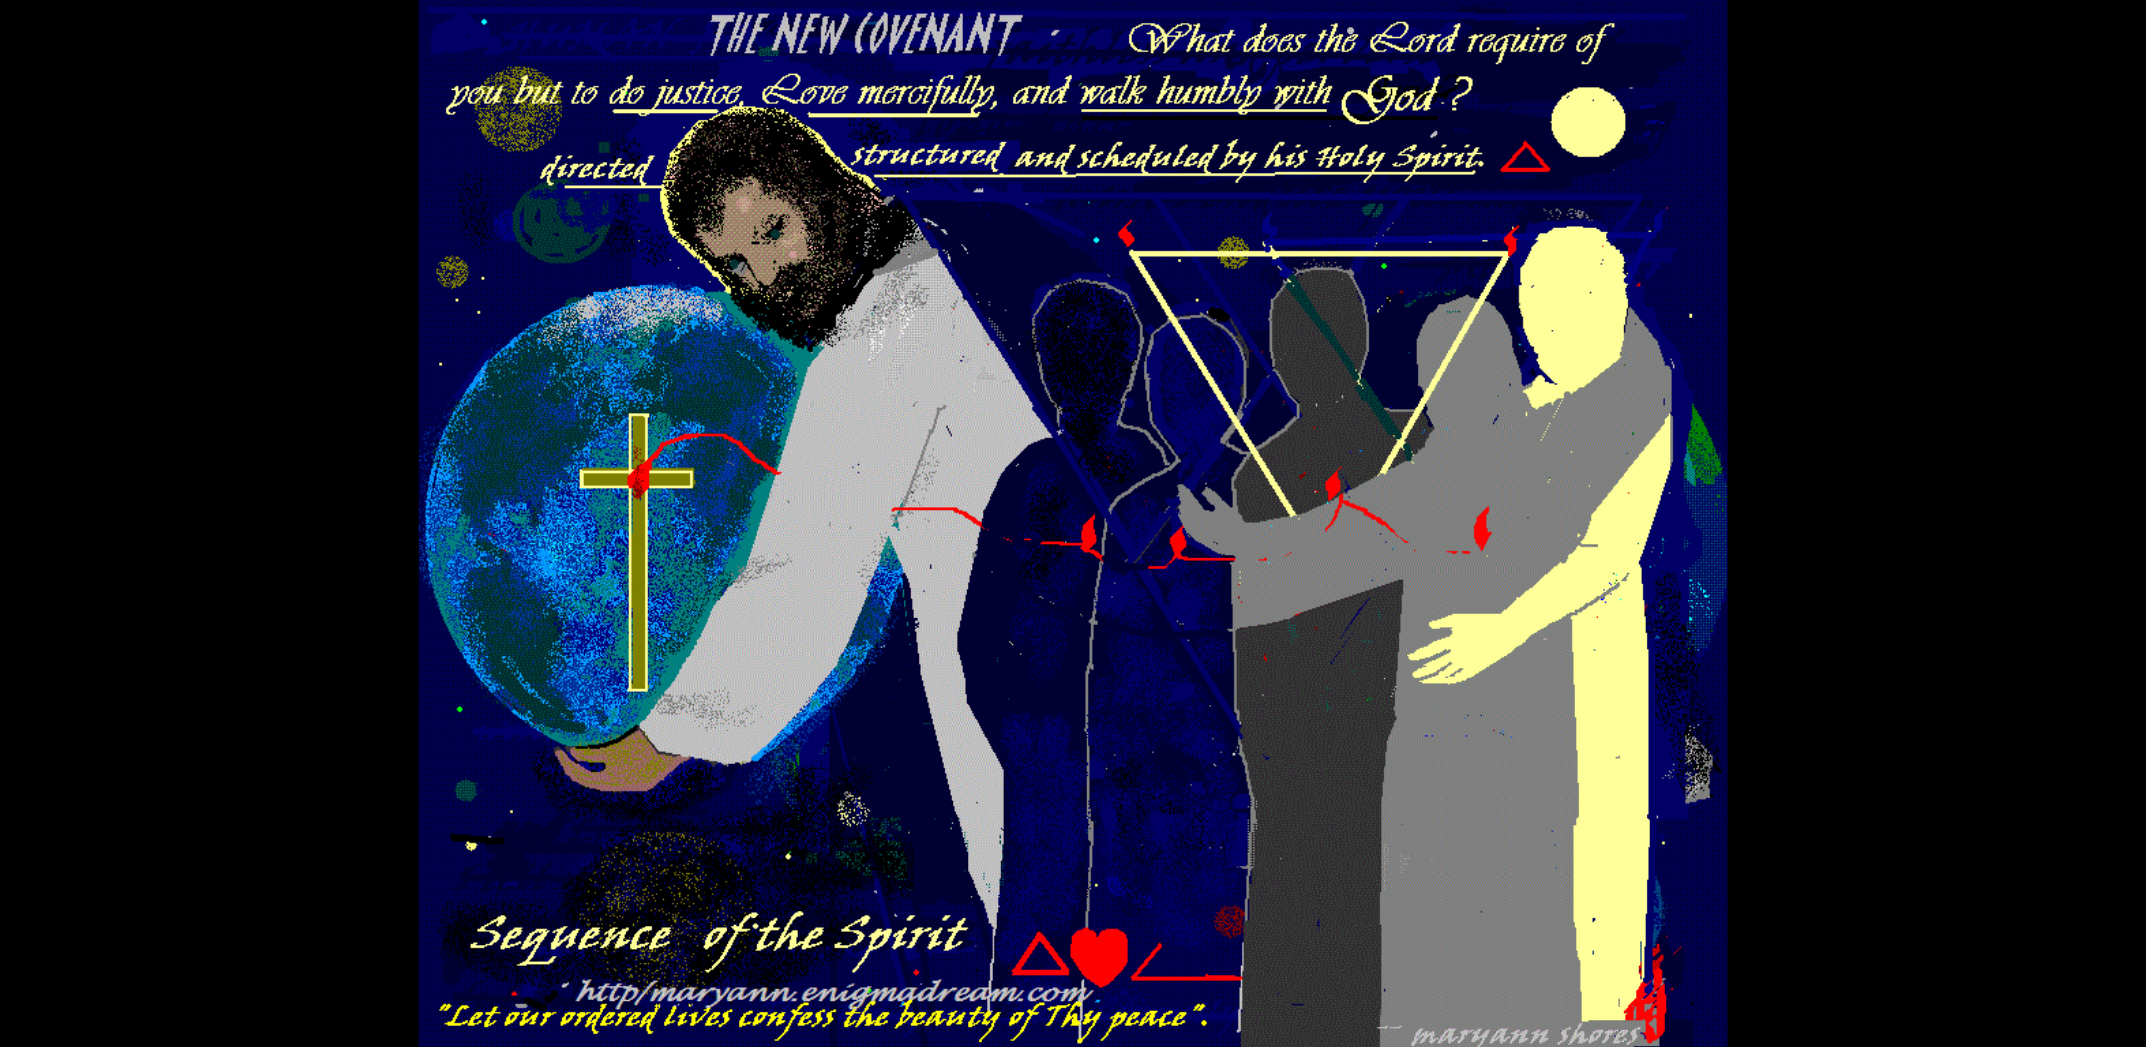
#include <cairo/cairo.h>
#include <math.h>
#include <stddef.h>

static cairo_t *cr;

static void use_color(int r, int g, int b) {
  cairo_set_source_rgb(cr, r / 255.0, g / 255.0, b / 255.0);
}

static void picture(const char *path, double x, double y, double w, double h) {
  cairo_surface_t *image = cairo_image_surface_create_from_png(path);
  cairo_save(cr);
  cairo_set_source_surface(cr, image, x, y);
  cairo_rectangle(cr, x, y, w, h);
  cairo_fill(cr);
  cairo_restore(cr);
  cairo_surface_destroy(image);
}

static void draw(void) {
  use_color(0, 0, 0);
  cairo_paint(cr);
  picture("img_01.png", 418, 0, 1310, 1047);
}

int main(void) {
  cairo_surface_t *surface = cairo_image_surface_create(CAIRO_FORMAT_RGB24, 2146, 1047);
  cr = cairo_create(surface);
  cairo_font_options_t *options = cairo_font_options_create();
  cairo_font_options_set_hint_metrics(options, CAIRO_HINT_METRICS_OFF);
  cairo_font_options_set_hint_style(options, CAIRO_HINT_STYLE_NONE);
  cairo_set_font_options(cr, options);
  cairo_set_miter_limit(cr, 4);
  draw();
  cairo_surface_write_to_png(surface, "out.png");
  cairo_font_options_destroy(options);
  cairo_destroy(cr);
  cairo_surface_destroy(surface);
  return 0;
}
